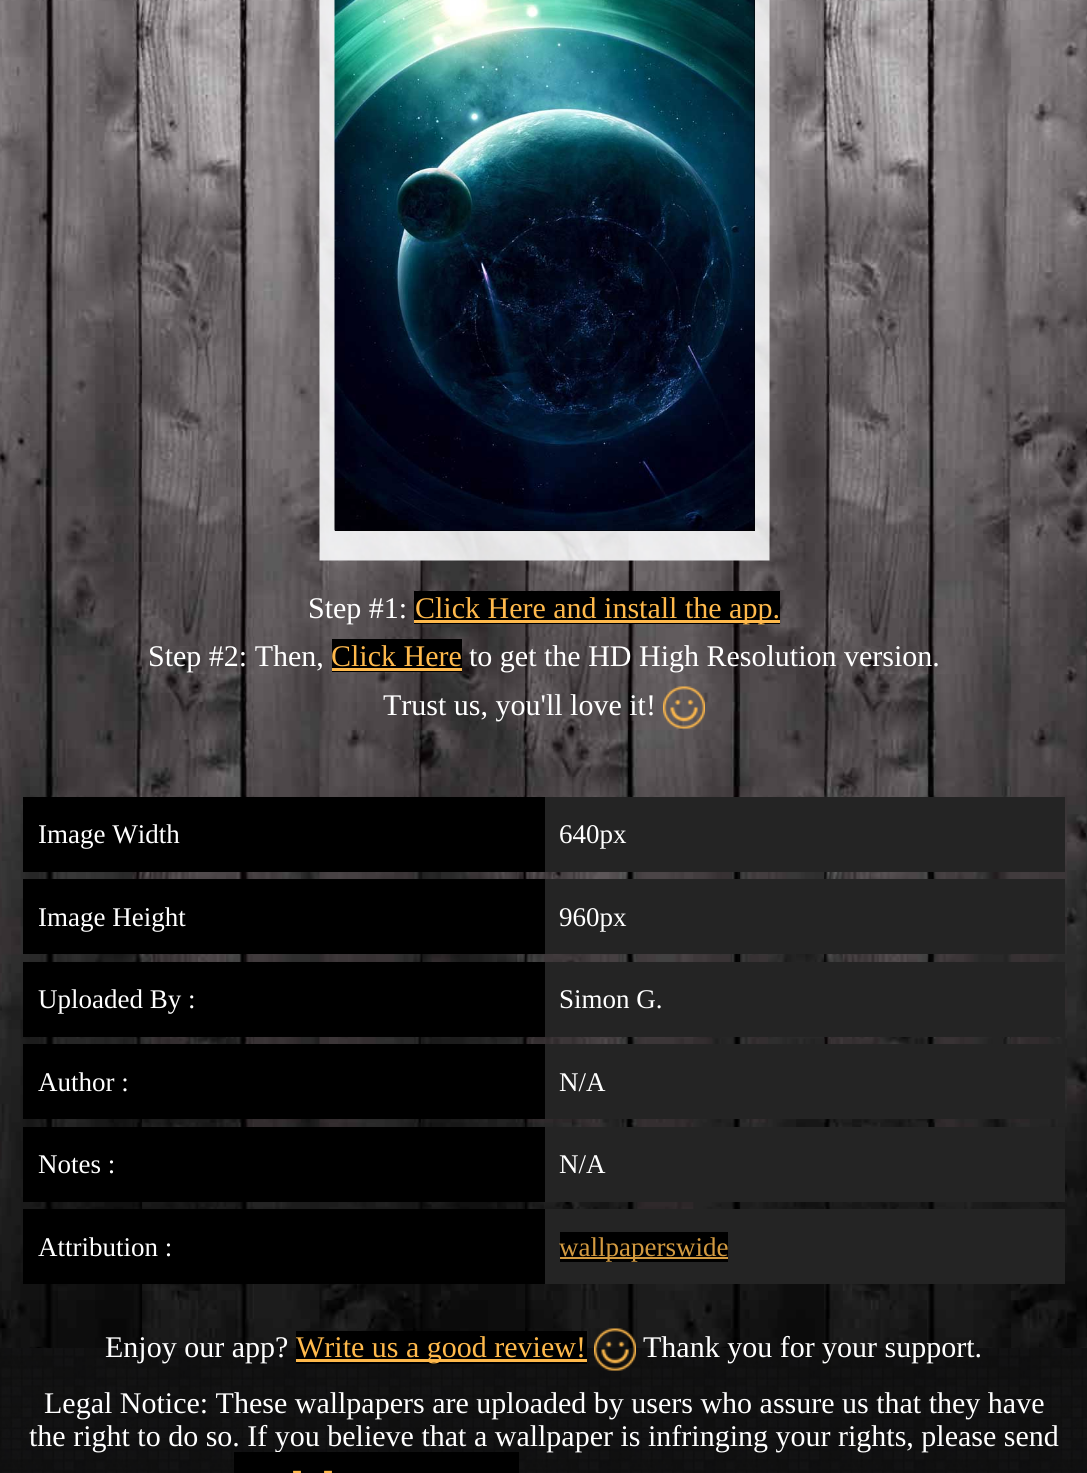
#include <cairo/cairo.h>
#include <math.h>
#include <stddef.h>

static cairo_t *cr;

static void use_color(int r, int g, int b) {
  cairo_set_source_rgb(cr, r / 255.0, g / 255.0, b / 255.0);
}

static void text(double x, double y, const char *s, const char *family, double size, int italic, int bold, int r, int g, int b) {
  cairo_select_font_face(cr, family, italic ? CAIRO_FONT_SLANT_ITALIC : CAIRO_FONT_SLANT_NORMAL,
    bold ? CAIRO_FONT_WEIGHT_BOLD : CAIRO_FONT_WEIGHT_NORMAL);
  cairo_set_font_size(cr, size);
  use_color(r, g, b);
  cairo_move_to(cr, x, y);
  cairo_show_text(cr, s);
}

static void box(double x, double y, double w, double h, int r, int g, int b) {
  use_color(r, g, b);
  cairo_rectangle(cr, x, y, w, h);
  cairo_fill(cr);
}

static void picture(const char *path, double x, double y, double w, double h) {
  cairo_surface_t *image = cairo_image_surface_create_from_png(path);
  cairo_save(cr);
  cairo_set_source_surface(cr, image, x, y);
  cairo_rectangle(cr, x, y, w, h);
  cairo_fill(cr);
  cairo_restore(cr);
  cairo_surface_destroy(image);
}

static void draw(void) {
  use_color(255, 255, 255);
  cairo_paint(cr);
  picture("img_01.png", 0, 1348, 1087, 125);
  picture("img_02.png", 0, 0, 1087, 1348);
  picture("img_03.png", 319, 0, 451, 561);
  box(335, 0, 420, 531, 0, 0, 0);
  picture("img_04.png", 334, 0, 421, 531);
  box(414, 591, 366, 33, 0, 0, 0);
  box(414, 620, 366, 3, 255, 185, 75);
  box(332, 639, 130, 33, 0, 0, 0);
  box(332, 668, 130, 3, 255, 185, 75);
  picture("img_05.png", 663, 686, 42, 43);
  box(545, 797, 520, 75, 36, 36, 36);
  box(23, 797, 522, 75, 0, 0, 0);
  box(545, 879, 520, 75, 36, 36, 36);
  box(23, 879, 522, 75, 0, 0, 0);
  box(545, 962, 520, 75, 36, 36, 36);
  box(23, 962, 522, 75, 0, 0, 0);
  box(545, 1044, 520, 75, 36, 36, 36);
  box(23, 1044, 522, 75, 0, 0, 0);
  box(545, 1127, 520, 75, 36, 36, 36);
  box(23, 1127, 522, 75, 0, 0, 0);
  box(545, 1209, 520, 75, 36, 36, 36);
  box(23, 1209, 522, 75, 0, 0, 0);
  box(560, 1232, 168, 30, 0, 0, 0);
  box(560, 1257, 168, 2, 211, 154, 64);
  box(296, 1331, 291, 33, 0, 0, 0);
  box(296, 1359, 291, 3, 255, 185, 75);
  picture("img_06.png", 594, 1328, 42, 43);
  text(308, 618, "Step #1:", "Liberation Serif", 30, 0, 0, 255, 255, 255);
  text(415, 618, "Click Here and install the app.", "Liberation Serif", 30, 0, 0, 255, 185, 75);
  text(148, 666, "Step #2: Then,", "Liberation Serif", 30, 0, 0, 255, 255, 255);
  text(331, 666, "Click Here", "Liberation Serif", 30, 0, 0, 255, 185, 75);
  text(469, 666, "to get the HD High Resolution version.", "Liberation Serif", 30, 0, 0, 255, 255, 255);
  text(383, 715, "Trust us, you'll love it!", "Liberation Serif", 30, 0, 0, 255, 255, 255);
  text(38, 843, "Image Width", "Liberation Serif", 27, 0, 0, 255, 255, 255);
  text(559, 843, "640px", "Liberation Serif", 27, 0, 0, 255, 255, 255);
  text(38, 926, "Image Height", "Liberation Serif", 27, 0, 0, 255, 255, 255);
  text(559, 926, "960px", "Liberation Serif", 27, 0, 0, 255, 255, 255);
  text(38, 1008, "Uploaded By :", "Liberation Serif", 27, 0, 0, 255, 255, 255);
  text(559, 1008, "Simon G.", "Liberation Serif", 27, 0, 0, 255, 255, 255);
  text(38, 1091, "Author :", "Liberation Serif", 27, 0, 0, 255, 255, 255);
  text(559, 1091, "N/A", "Liberation Serif", 27, 0, 0, 255, 255, 255);
  text(38, 1173, "Notes :", "Liberation Serif", 27, 0, 0, 255, 255, 255);
  text(559, 1173, "N/A", "Liberation Serif", 27, 0, 0, 255, 255, 255);
  text(38, 1256, "Attribution :", "Liberation Serif", 27, 0, 0, 255, 255, 255);
  text(559, 1256, "wallpaperswide", "Liberation Serif", 27, 0, 0, 211, 154, 64);
  text(105, 1357, "Enjoy our app?", "Liberation Serif", 30, 0, 0, 255, 255, 255);
  text(296, 1357, "Write us a good review!", "Liberation Serif", 30, 0, 0, 255, 185, 75);
  text(643, 1357, "Thank you for your support.", "Liberation Serif", 30, 0, 0, 255, 255, 255);
  text(44, 1413, "Legal Notice: These wallpapers are uploaded by users who assure us that they have", "Liberation Serif", 30, 0, 0, 255, 255, 255);
  text(29, 1446, "the right to do so. If you believe that a wallpaper is infringing your rights, please send", "Liberation Serif", 30, 0, 0, 255, 255, 255);
  box(234, 1452, 285, 21, 0, 0, 0);
  text(292, 1479, "-", "Liberation Serif", 30, 0, 0, 255, 185, 75);
  text(323, 1479, "-", "Liberation Serif", 30, 0, 0, 255, 185, 75);
}

int main(void) {
  cairo_surface_t *surface = cairo_image_surface_create(CAIRO_FORMAT_RGB24, 1087, 1473);
  cr = cairo_create(surface);
  cairo_font_options_t *options = cairo_font_options_create();
  cairo_font_options_set_hint_metrics(options, CAIRO_HINT_METRICS_OFF);
  cairo_font_options_set_hint_style(options, CAIRO_HINT_STYLE_NONE);
  cairo_set_font_options(cr, options);
  cairo_set_miter_limit(cr, 4);
  draw();
  cairo_surface_write_to_png(surface, "out.png");
  cairo_font_options_destroy(options);
  cairo_destroy(cr);
  cairo_surface_destroy(surface);
  return 0;
}
